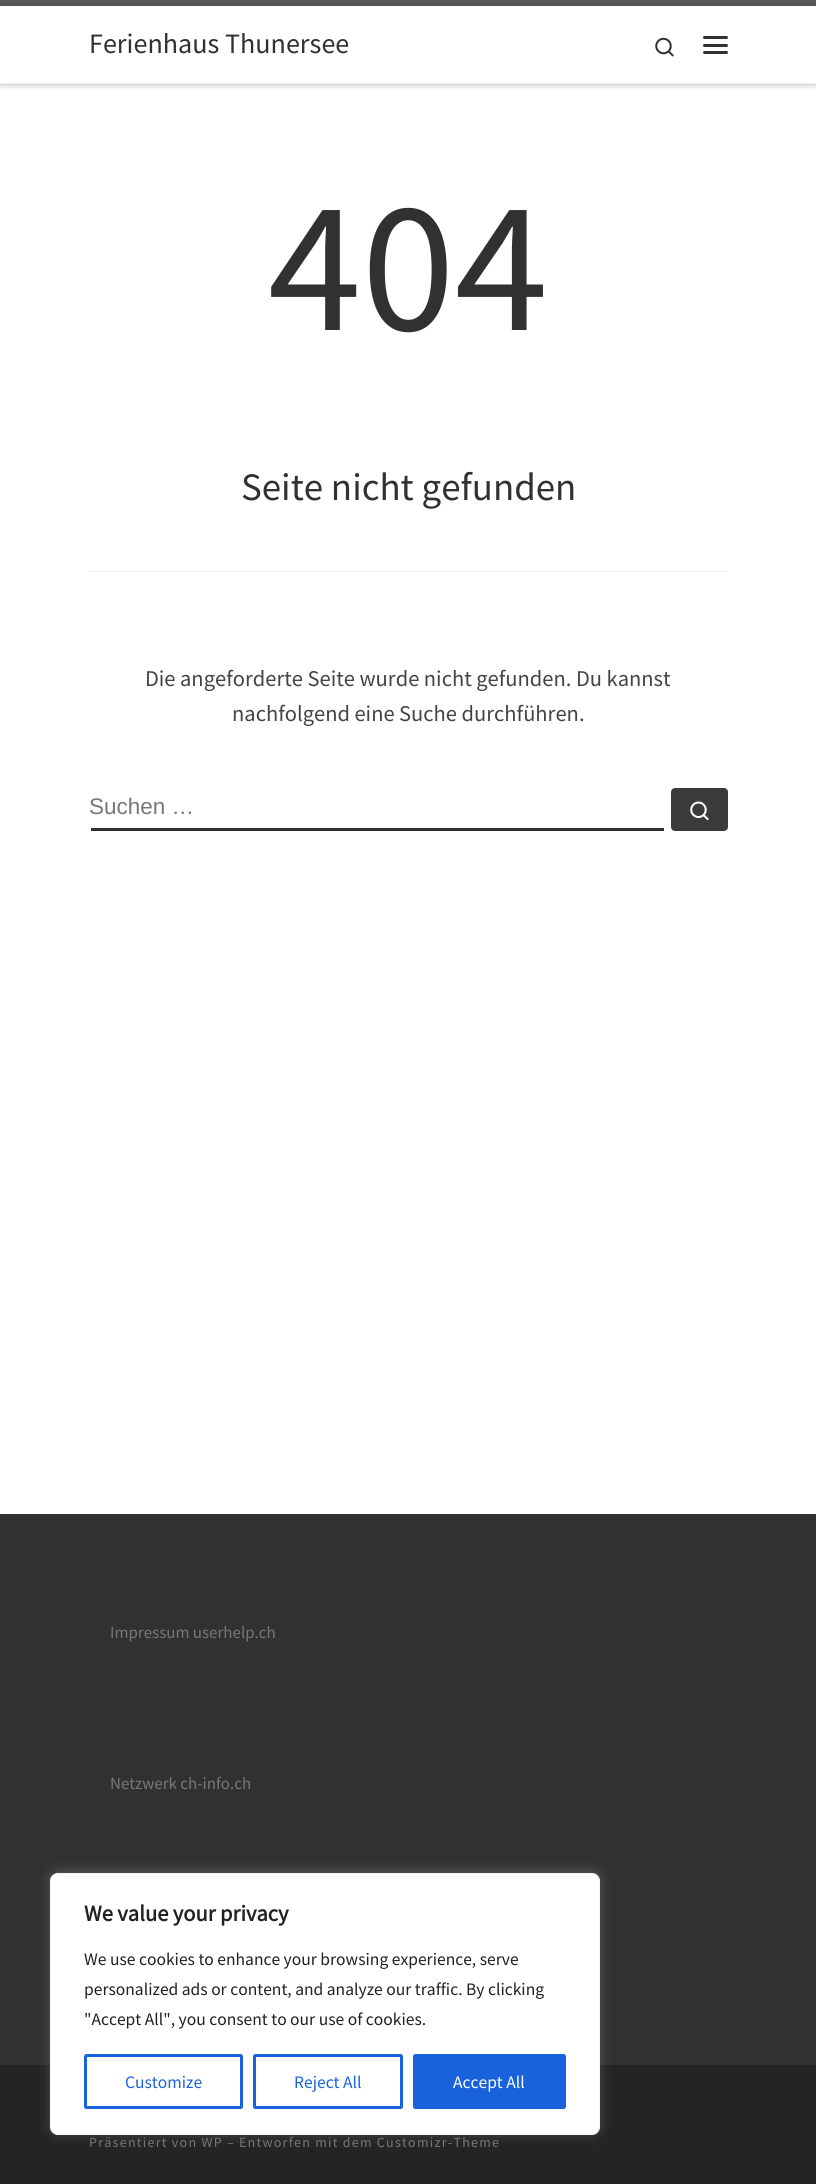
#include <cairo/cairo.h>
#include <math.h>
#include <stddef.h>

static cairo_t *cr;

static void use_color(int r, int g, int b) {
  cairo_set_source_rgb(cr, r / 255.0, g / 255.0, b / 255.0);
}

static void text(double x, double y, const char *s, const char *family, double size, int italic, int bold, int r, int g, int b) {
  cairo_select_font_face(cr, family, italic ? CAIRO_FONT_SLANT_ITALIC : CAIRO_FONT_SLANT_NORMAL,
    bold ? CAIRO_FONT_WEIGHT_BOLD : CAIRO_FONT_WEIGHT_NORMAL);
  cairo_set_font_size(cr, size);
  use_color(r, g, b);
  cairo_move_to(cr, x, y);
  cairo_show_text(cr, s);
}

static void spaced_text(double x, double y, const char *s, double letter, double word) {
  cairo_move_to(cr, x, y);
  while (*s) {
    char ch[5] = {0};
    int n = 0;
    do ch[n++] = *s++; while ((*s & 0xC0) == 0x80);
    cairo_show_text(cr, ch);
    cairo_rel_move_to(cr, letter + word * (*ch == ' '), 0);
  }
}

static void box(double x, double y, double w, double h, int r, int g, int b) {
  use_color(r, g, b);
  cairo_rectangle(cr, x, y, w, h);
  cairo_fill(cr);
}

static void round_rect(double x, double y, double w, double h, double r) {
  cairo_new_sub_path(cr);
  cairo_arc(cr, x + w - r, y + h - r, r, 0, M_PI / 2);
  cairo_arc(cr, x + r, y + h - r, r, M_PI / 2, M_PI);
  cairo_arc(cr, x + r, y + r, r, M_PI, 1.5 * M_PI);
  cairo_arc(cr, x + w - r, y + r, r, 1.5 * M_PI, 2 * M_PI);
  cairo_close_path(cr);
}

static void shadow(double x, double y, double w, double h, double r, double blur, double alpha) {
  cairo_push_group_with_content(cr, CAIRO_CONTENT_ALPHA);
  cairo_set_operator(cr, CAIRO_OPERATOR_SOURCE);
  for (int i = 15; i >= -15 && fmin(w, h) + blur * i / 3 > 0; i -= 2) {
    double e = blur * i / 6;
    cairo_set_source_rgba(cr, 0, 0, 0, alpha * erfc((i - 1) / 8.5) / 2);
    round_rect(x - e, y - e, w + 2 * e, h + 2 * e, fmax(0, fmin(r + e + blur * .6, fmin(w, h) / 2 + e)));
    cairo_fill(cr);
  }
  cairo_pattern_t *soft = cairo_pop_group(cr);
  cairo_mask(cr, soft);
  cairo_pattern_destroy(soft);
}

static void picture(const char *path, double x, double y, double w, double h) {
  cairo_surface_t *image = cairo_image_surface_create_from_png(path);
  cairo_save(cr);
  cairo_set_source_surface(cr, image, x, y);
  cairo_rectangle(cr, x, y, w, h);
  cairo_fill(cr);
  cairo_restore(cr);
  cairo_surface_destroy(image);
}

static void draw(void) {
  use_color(255, 255, 255);
  cairo_paint(cr);
  use_color(102, 102, 102);
  shadow(0, 3, 816, 85, 0, 1, 0.08);
  box(0, 0, 816, 6, 90, 90, 90);
  box(0, 84, 816, 1, 239, 239, 239);
  use_color(0, 0, 0);
  shadow(0, 6, 816, 78, 0, 3, 0.2);
  box(0, 6, 816, 77, 255, 255, 255);
  picture("img_01.png", 655, 37, 19, 20);
  use_color(49, 49, 49);
  round_rect(703, 36, 25, 3, 1.5);
  cairo_fill(cr);
  round_rect(703, 44, 25, 3, 1.5);
  cairo_fill(cr);
  round_rect(703, 51, 25, 3, 1.5);
  cairo_fill(cr);
  box(0, 83, 816, 1, 240, 240, 240);
  box(90, 571, 638, 1, 236, 238, 239);
  box(91, 828, 573, 3, 49, 49, 49);
  use_color(59, 59, 59);
  round_rect(672.5, 789.5, 54, 40, 2.5);
  cairo_fill_preserve(cr);
  cairo_set_line_width(cr, 3);
  cairo_stroke(cr);
  picture("img_02.png", 690, 801, 19, 20);
  box(0, 1514, 816, 551, 49, 49, 49);
  box(0, 2065, 816, 119, 36, 36, 36);
  use_color(172, 171, 171);
  shadow(50, 1871, 550, 263, 8, 6, 0.3);
  use_color(255, 255, 255);
  round_rect(50.5, 1873.5, 549, 261, 7.5);
  cairo_fill_preserve(cr);
  use_color(244, 244, 244);
  cairo_set_line_width(cr, 1);
  cairo_stroke(cr);
  round_rect(85.5, 2055.5, 156, 52, 1);
  use_color(24, 99, 220);
  cairo_set_line_width(cr, 3);
  cairo_stroke(cr);
  round_rect(254.5, 2055.5, 147, 52, 1);
  cairo_stroke(cr);
  round_rect(414.5, 2055.5, 150, 52, 1);
  cairo_fill_preserve(cr);
  cairo_stroke(cr);
  text(89, 53, "Ferienhaus Thunersee", "Source Sans Pro", 28.1, 0, 0, 48, 49, 51);
  text(268, 330, "404", "Source Sans Pro", 188, 0, 0, 48, 49, 51);
  text(241, 500, "Seite nicht gefunden", "Source Sans Pro", 38.9, 0, 0, 48, 49, 51);
  text(145, 686, "Die angeforderte Seite wurde nicht gefunden. Du kannst", "Source Sans Pro", 22.5, 0, 0, 68, 68, 68);
  text(232, 721, "nachfolgend eine Suche durchführen.", "Source Sans Pro", 22.5, 0, 0, 68, 68, 68);
  text(89, 814, "Suchen …", "Liberation Sans", 22.5, 0, 0, 119, 119, 119);
  text(110, 1638, "Impressum userhelp.ch", "Source Sans Pro", 16.9, 0, 0, 119, 119, 119);
  text(110, 1789, "Netzwerk ch-info.ch", "Source Sans Pro", 16.9, 0, 0, 119, 119, 119);
  cairo_set_font_size(cr, 14);
  spaced_text(89, 2147, "Präsentiert von WP – Entworfen mit dem Customizr-Theme", 1.25, 0);
  text(84, 1921, "We value your privacy", "Source Sans Pro", 22.5, 0, 1, 33, 33, 33);
  text(84, 1965, "We use cookies to enhance your browsing experience, serve", "Source Sans Pro", 17.5, 0, 0, 33, 33, 33);
  text(84, 1995, "personalized ads or content, and analyze our traffic. By clicking", "Source Sans Pro", 17.5, 0, 0, 33, 33, 33);
  text(84, 2025, "\"Accept All\", you consent to our use of cookies.", "Source Sans Pro", 17.5, 0, 0, 33, 33, 33);
  text(125, 2088, "Customize", "Source Sans Pro", 17.5, 0, 0, 24, 99, 220);
  text(294, 2088, "Reject All", "Source Sans Pro", 17.5, 0, 0, 24, 99, 220);
  text(453, 2088, "Accept All", "Source Sans Pro", 17.5, 0, 0, 255, 255, 255);
}

int main(void) {
  cairo_surface_t *surface = cairo_image_surface_create(CAIRO_FORMAT_RGB24, 816, 2184);
  cr = cairo_create(surface);
  cairo_font_options_t *options = cairo_font_options_create();
  cairo_font_options_set_hint_metrics(options, CAIRO_HINT_METRICS_OFF);
  cairo_font_options_set_hint_style(options, CAIRO_HINT_STYLE_NONE);
  cairo_set_font_options(cr, options);
  cairo_set_miter_limit(cr, 4);
  draw();
  cairo_surface_write_to_png(surface, "out.png");
  cairo_font_options_destroy(options);
  cairo_destroy(cr);
  cairo_surface_destroy(surface);
  return 0;
}
